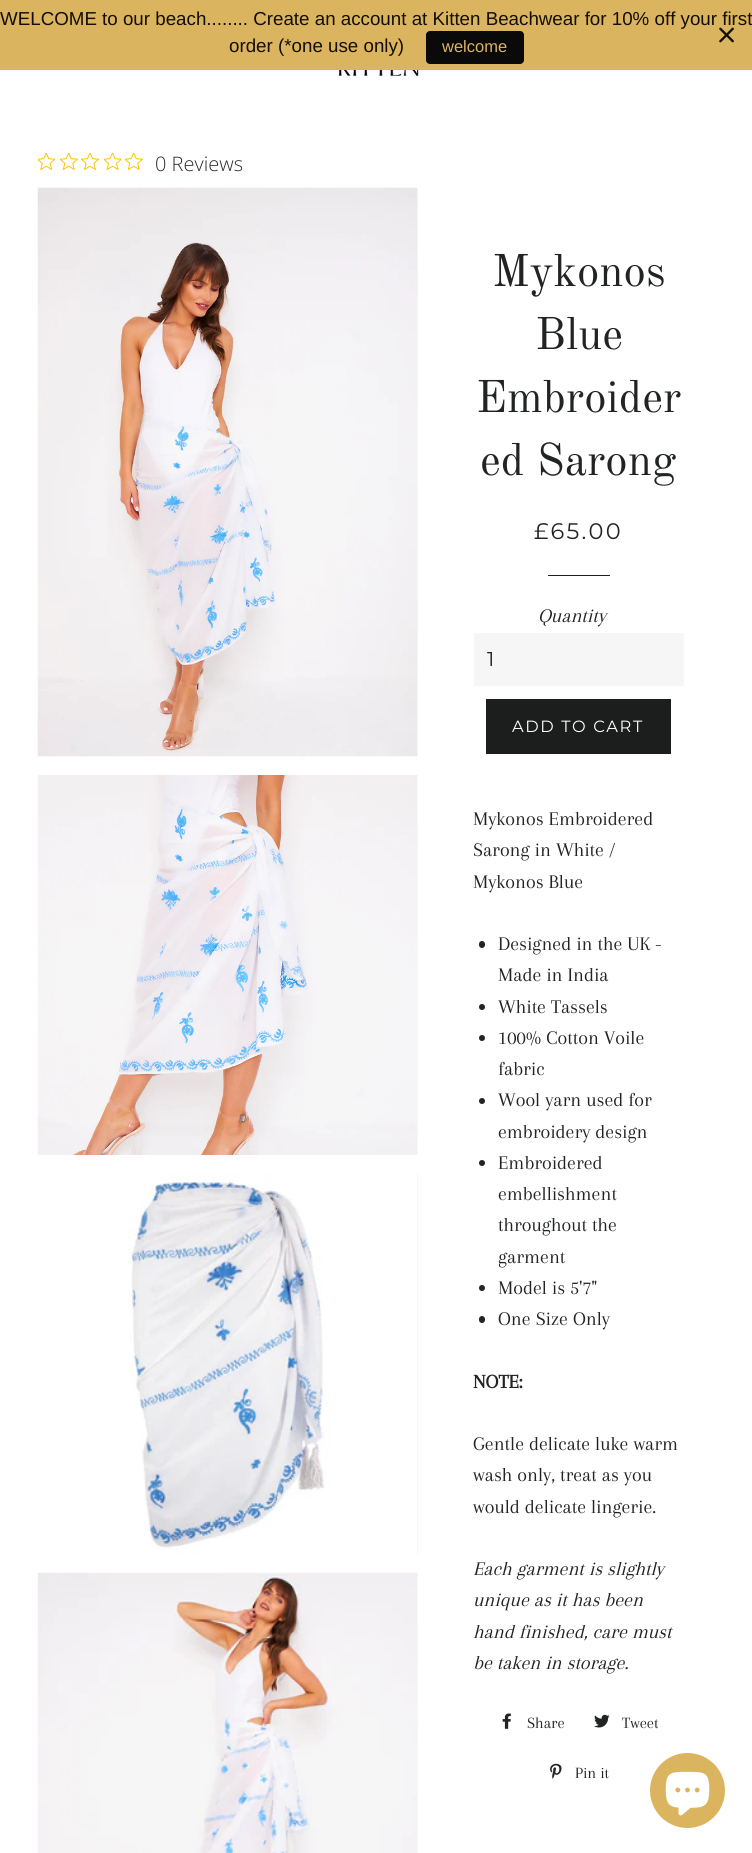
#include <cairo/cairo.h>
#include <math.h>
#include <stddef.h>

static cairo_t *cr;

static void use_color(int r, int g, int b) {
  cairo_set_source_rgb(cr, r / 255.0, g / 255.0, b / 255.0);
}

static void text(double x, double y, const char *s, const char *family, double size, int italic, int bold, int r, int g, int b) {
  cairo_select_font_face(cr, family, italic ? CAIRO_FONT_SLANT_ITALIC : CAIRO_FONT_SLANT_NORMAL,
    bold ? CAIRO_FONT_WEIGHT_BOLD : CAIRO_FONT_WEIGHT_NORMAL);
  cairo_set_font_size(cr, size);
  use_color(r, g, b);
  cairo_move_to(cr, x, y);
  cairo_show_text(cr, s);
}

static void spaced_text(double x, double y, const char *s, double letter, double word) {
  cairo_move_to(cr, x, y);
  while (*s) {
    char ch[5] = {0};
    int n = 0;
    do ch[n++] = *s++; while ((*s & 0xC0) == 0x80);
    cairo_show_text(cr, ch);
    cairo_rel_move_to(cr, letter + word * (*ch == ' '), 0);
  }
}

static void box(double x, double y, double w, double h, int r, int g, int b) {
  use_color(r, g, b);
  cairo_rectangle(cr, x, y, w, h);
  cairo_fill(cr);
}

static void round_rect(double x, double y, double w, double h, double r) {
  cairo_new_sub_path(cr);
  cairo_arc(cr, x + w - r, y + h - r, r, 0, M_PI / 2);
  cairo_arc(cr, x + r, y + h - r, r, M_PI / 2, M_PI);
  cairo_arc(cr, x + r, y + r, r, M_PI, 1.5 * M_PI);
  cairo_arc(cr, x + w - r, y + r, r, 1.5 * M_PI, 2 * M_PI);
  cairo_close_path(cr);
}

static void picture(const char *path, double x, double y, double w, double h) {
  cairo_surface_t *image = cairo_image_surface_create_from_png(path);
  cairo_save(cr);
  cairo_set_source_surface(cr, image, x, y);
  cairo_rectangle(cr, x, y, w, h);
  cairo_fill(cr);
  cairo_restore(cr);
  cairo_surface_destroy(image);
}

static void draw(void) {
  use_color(255, 255, 255);
  cairo_paint(cr);
  box(0, 0, 752, 70, 219, 180, 96);
  use_color(10, 10, 10);
  round_rect(426, 31, 98, 33, 4);
  cairo_fill(cr);
  picture("img_02.png", 338, 70, 81, 8);
  picture("img_03.png", 38, 153, 17, 17);
  picture("img_04.png", 60, 153, 18, 17);
  picture("img_05.png", 81, 153, 18, 17);
  picture("img_06.png", 104, 153, 17, 17);
  picture("img_04.png", 125, 153, 18, 17);
  box(417, 188, 1, 568, 247, 247, 247);
  picture("img_07.png", 37, 187, 381, 570);
  box(417, 775, 1, 380, 247, 247, 247);
  picture("img_08.png", 37, 775, 380, 380);
  box(38, 1174, 380, 380, 247, 247, 247);
  picture("img_09.png", 38, 1174, 379, 380);
  box(417, 1573, 1, 280, 247, 247, 247);
  picture("img_10.png", 37, 1572, 380, 281);
  box(548, 575, 62, 1, 28, 29, 29);
  box(474, 633, 210, 53, 246, 246, 246);
  box(486, 699, 185, 55, 28, 29, 29);
  use_color(34, 35, 35);
  round_rect(479, 941, 6, 7, 3);
  cairo_fill(cr);
  cairo_arc(cr, 482, 1007, 3, 0, 2 * M_PI);
  cairo_fill(cr);
  cairo_arc(cr, 482, 1038, 3, 0, 2 * M_PI);
  cairo_fill(cr);
  cairo_arc(cr, 482, 1101, 3, 0, 2 * M_PI);
  cairo_fill(cr);
  cairo_arc(cr, 482, 1163, 3, 0, 2 * M_PI);
  cairo_fill(cr);
  cairo_arc(cr, 482, 1288, 3, 0, 2 * M_PI);
  cairo_fill(cr);
  round_rect(479, 1316, 6, 7, 3);
  cairo_fill(cr);
  picture("img_11.png", 502, 1713, 9, 16);
  picture("img_12.png", 594, 1714, 16, 14);
  picture("img_13.png", 550, 1763, 12, 16);
  use_color(219, 180, 96);
  cairo_arc(cr, 687.5, 1790.5, 37.5, 0, 2 * M_PI);
  cairo_fill(cr);
  picture("img_14.png", 665, 1771, 45, 45);
  text(0, 25, "WELCOME to our beach........ Create an account at Kitten Beachwear for 10% off your first", "Liberation Sans", 18.75, 0, 0, 20, 15, 1);
  text(229, 52, "order (*one use only)", "Liberation Sans", 18.75, 0, 0, 20, 15, 1);
  text(442, 52, "welcome", "Liberation Sans", 16.5, 0, 0, 219, 180, 96);
  picture("img_01.png", 719, 27, 15, 16);
  text(155, 171, "0 Reviews", "Open Sans Light", 20, 0, 0, 44, 44, 44);
  text(492, 286, "Mykonos", "Old Standard TT", 45, 0, 0, 34, 35, 35);
  text(535, 349, "Blue", "Old Standard TT", 45, 0, 0, 34, 35, 35);
  text(476, 412, "Embroider", "Old Standard TT", 45, 0, 0, 34, 35, 35);
  text(480, 475, "ed Sarong", "Old Standard TT", 45, 0, 0, 34, 35, 35);
  cairo_select_font_face(cr, "Montserrat Thin", CAIRO_FONT_SLANT_NORMAL, CAIRO_FONT_WEIGHT_NORMAL);
  cairo_set_font_size(cr, 22.5);
  spaced_text(534, 539, "£65.00", 2.25, 0);
  text(538, 622, "Quantity", "Arapey", 20, 1, 0, 34, 35, 35);
  cairo_select_font_face(cr, "Montserrat Thin", CAIRO_FONT_SLANT_NORMAL, CAIRO_FONT_WEIGHT_NORMAL);
  use_color(28, 29, 29);
  spaced_text(487, 666, "1", 2, 0);
  cairo_set_font_size(cr, 16.25);
  use_color(255, 255, 255);
  spaced_text(512, 732, "ADD TO CART", 1.6, 0);
  text(473, 825, "Mykonos Embroidered", "Arapey", 20, 0, 0, 34, 35, 35);
  text(473, 856, "Sarong in White /", "Arapey", 20, 0, 0, 34, 35, 35);
  text(473, 888, "Mykonos Blue", "Arapey", 20, 0, 0, 34, 35, 35);
  text(498, 950, "Designed in the UK -", "Arapey", 20, 0, 0, 34, 35, 35);
  text(498, 981, "Made in India", "Arapey", 20, 0, 0, 34, 35, 35);
  text(498, 1013, "White Tassels", "Arapey", 20, 0, 0, 34, 35, 35);
  text(498, 1044, "100% Cotton Voile", "Arapey", 20, 0, 0, 34, 35, 35);
  text(498, 1075, "fabric", "Arapey", 20, 0, 0, 34, 35, 35);
  text(498, 1106, "Wool yarn used for", "Arapey", 20, 0, 0, 34, 35, 35);
  text(498, 1138, "embroidery design", "Arapey", 20, 0, 0, 34, 35, 35);
  text(498, 1169, "Embroidered", "Arapey", 20, 0, 0, 34, 35, 35);
  text(498, 1200, "embellishment", "Arapey", 20, 0, 0, 34, 35, 35);
  text(498, 1231, "throughout the", "Arapey", 20, 0, 0, 34, 35, 35);
  text(498, 1263, "garment", "Arapey", 20, 0, 0, 34, 35, 35);
  text(498, 1294, "Model is 5'7\"", "Arapey", 20, 0, 0, 34, 35, 35);
  text(498, 1325, "One Size Only", "Arapey", 20, 0, 0, 34, 35, 35);
  text(473, 1388, "NOTE:", "Arapey", 20, 0, 1, 34, 35, 35);
  text(473, 1450, "Gentle delicate luke warm", "Arapey", 20, 0, 0, 34, 35, 35);
  text(473, 1481, "wash only, treat as you", "Arapey", 20, 0, 0, 34, 35, 35);
  text(473, 1513, "would delicate lingerie.", "Arapey", 20, 0, 0, 34, 35, 35);
  text(473, 1575, "Each garment is slightly", "Arapey", 20, 1, 0, 34, 35, 35);
  text(473, 1606, "unique as it has been", "Arapey", 20, 1, 0, 34, 35, 35);
  text(473, 1638, "hand finished, care must", "Arapey", 20, 1, 0, 34, 35, 35);
  text(473, 1669, "be taken in storage.", "Arapey", 20, 1, 0, 34, 35, 35);
  text(527, 1728, "Share", "Arapey", 16.25, 0, 0, 34, 35, 35);
  text(622, 1728, "Tweet", "Arapey", 16.25, 0, 0, 34, 35, 35);
  text(575, 1778, "Pin it", "Arapey", 16.25, 0, 0, 34, 35, 35);
}

int main(void) {
  cairo_surface_t *surface = cairo_image_surface_create(CAIRO_FORMAT_RGB24, 752, 1853);
  cr = cairo_create(surface);
  cairo_font_options_t *options = cairo_font_options_create();
  cairo_font_options_set_hint_metrics(options, CAIRO_HINT_METRICS_OFF);
  cairo_font_options_set_hint_style(options, CAIRO_HINT_STYLE_NONE);
  cairo_set_font_options(cr, options);
  cairo_set_miter_limit(cr, 4);
  draw();
  cairo_surface_write_to_png(surface, "out.png");
  cairo_font_options_destroy(options);
  cairo_destroy(cr);
  cairo_surface_destroy(surface);
  return 0;
}
